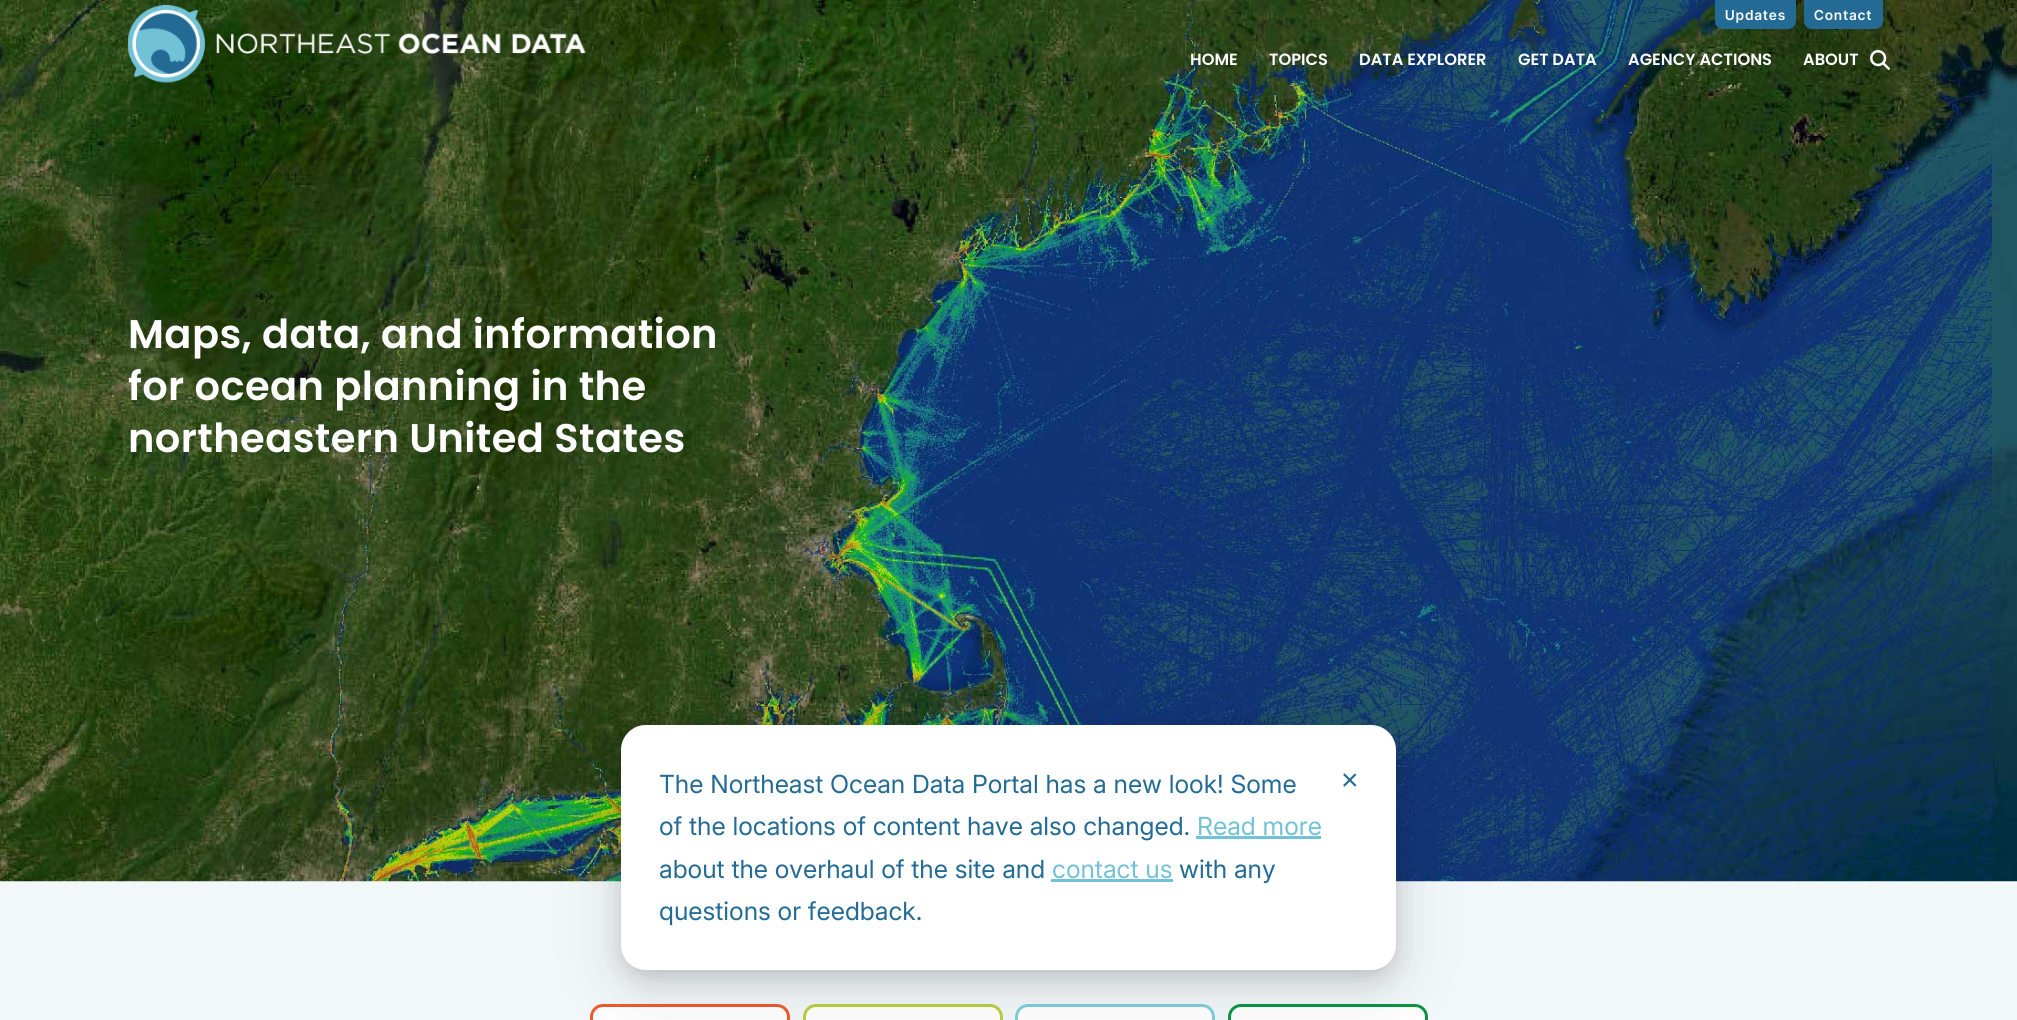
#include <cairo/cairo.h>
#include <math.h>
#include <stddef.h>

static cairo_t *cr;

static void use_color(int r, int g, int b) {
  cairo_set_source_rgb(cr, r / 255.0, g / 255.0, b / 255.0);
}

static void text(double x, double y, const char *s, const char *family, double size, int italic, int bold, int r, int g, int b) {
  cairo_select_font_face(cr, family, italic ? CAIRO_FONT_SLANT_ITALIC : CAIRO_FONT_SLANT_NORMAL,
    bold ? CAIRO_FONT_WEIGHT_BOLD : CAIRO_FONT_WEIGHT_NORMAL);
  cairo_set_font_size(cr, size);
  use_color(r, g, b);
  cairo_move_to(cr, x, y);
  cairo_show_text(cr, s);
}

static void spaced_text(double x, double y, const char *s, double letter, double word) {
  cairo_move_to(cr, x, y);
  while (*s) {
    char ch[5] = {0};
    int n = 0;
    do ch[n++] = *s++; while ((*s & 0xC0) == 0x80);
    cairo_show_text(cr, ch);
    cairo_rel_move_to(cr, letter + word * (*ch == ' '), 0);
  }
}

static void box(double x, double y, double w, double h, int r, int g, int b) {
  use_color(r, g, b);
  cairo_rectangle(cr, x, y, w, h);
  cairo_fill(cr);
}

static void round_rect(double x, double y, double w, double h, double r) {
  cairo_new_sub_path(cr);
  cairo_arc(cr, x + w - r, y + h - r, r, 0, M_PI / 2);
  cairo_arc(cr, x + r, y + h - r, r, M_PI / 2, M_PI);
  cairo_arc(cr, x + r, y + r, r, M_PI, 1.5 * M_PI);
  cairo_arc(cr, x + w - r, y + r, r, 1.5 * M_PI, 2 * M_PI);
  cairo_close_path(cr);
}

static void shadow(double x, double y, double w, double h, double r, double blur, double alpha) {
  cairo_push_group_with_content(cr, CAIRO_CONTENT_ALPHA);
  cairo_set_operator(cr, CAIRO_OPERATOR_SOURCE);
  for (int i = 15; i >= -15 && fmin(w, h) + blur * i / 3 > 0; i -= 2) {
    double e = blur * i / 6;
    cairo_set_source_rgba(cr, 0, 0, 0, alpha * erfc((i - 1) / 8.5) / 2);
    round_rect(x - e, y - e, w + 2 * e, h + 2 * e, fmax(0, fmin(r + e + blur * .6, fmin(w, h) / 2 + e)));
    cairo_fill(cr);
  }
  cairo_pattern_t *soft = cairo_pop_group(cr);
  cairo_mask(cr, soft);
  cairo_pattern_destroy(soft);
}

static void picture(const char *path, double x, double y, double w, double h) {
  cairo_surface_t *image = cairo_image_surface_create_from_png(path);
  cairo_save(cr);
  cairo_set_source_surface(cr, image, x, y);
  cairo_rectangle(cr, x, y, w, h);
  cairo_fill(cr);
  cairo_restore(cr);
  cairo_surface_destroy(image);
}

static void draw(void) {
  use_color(242, 247, 249);
  cairo_paint(cr);
  picture("img_03.png", 0, 0, 2017, 882);
  picture("img_01.png", 128, 5, 458, 78);
  use_color(35, 107, 149);
  cairo_new_path(cr);
  cairo_move_to(cr, 1715, 0);
  cairo_line_to(cr, 1796, 0);
  cairo_line_to(cr, 1796, 21);
  cairo_curve_to(cr, 1796, 25.5, 1792.5, 29, 1788, 29);
  cairo_line_to(cr, 1723, 29);
  cairo_curve_to(cr, 1718.5, 29, 1715, 25.5, 1715, 21);
  cairo_close_path(cr);
  cairo_fill(cr);
  cairo_new_path(cr);
  cairo_move_to(cr, 1804, 0);
  cairo_line_to(cr, 1883, 0);
  cairo_line_to(cr, 1883, 21);
  cairo_curve_to(cr, 1883, 25.5, 1879.5, 29, 1875, 29);
  cairo_line_to(cr, 1812, 29);
  cairo_curve_to(cr, 1807.5, 29, 1804, 25.5, 1804, 21);
  cairo_close_path(cr);
  cairo_fill(cr);
  picture("img_02.png", 1870, 50, 20, 20);
  use_color(255, 255, 255);
  round_rect(591.5, 1005.5, 197, 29, 11.5);
  cairo_fill_preserve(cr);
  use_color(241, 89, 42);
  cairo_set_line_width(cr, 3);
  cairo_stroke(cr);
  use_color(255, 255, 255);
  round_rect(804.5, 1005.5, 197, 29, 11.5);
  cairo_fill_preserve(cr);
  use_color(187, 206, 65);
  cairo_stroke(cr);
  use_color(255, 255, 255);
  round_rect(1016.5, 1005.5, 197, 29, 11.5);
  cairo_fill_preserve(cr);
  use_color(127, 207, 218);
  cairo_stroke(cr);
  use_color(255, 255, 255);
  round_rect(1229.5, 1005.5, 197, 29, 11.5);
  cairo_fill_preserve(cr);
  use_color(11, 148, 68);
  cairo_stroke(cr);
  use_color(17, 17, 26);
  shadow(621, 745, 775, 245, 25, 35, 0.1);
  shadow(621, 735, 775, 245, 25, 15, 0.1);
  shadow(621, 730, 775, 245, 25, 10, 0.1);
  use_color(255, 255, 255);
  round_rect(621, 725, 775, 245, 25);
  cairo_fill(cr);
  box(1196, 836, 125, 3, 114, 194, 214);
  box(1051, 879, 122, 3, 114, 194, 214);
  cairo_select_font_face(cr, "Inter Tight SemiBold", CAIRO_FONT_SLANT_NORMAL, CAIRO_FONT_WEIGHT_NORMAL);
  cairo_set_font_size(cr, 13.75);
  use_color(247, 250, 252);
  spaced_text(1725, 20, "Updates", 1.25, 0);
  spaced_text(1814, 20, "Contact", 1.25, 0);
  text(1190, 65, "HOME", "Poppins SemiBold", 16.25, 0, 0, 255, 255, 255);
  text(1269, 65, "TOPICS", "Poppins SemiBold", 16.25, 0, 0, 255, 255, 255);
  text(1359, 65, "DATA EXPLORER", "Poppins SemiBold", 16.25, 0, 0, 255, 255, 255);
  text(1518, 65, "GET DATA", "Poppins SemiBold", 16.25, 0, 0, 255, 255, 255);
  text(1628, 65, "AGENCY ACTIONS", "Poppins SemiBold", 16.25, 0, 0, 255, 255, 255);
  text(1803, 65, "ABOUT", "Poppins SemiBold", 16.25, 0, 0, 255, 255, 255);
  cairo_set_font_size(cr, 40);
  spaced_text(128, 348, "Maps, data, and information", 0.4, 0);
  spaced_text(128, 400, "for ocean planning in the", 0.4, 0);
  spaced_text(128, 452, "northeastern United States", 0.4, 0);
  text(659, 793, "The Northeast Ocean Data Portal has a new look! Some", "Inter", 25, 0, 0, 35, 107, 149);
  text(659, 835, "of the locations of content have also changed.", "Inter", 25, 0, 0, 35, 107, 149);
  text(1197, 835, "Read more", "Inter", 25, 0, 0, 114, 194, 214);
  text(659, 878, "about the overhaul of the site and", "Inter", 25, 0, 0, 35, 107, 149);
  text(1052, 878, "contact us", "Inter", 25, 0, 0, 114, 194, 214);
  text(1179, 878, "with any", "Inter", 25, 0, 0, 35, 107, 149);
  text(659, 920, "questions or feedback.", "Inter", 25, 0, 0, 35, 107, 149);
  text(1341, 790, "×", "Liberation Sans", 30, 0, 0, 35, 107, 149);
}

int main(void) {
  cairo_surface_t *surface = cairo_image_surface_create(CAIRO_FORMAT_RGB24, 2017, 1020);
  cr = cairo_create(surface);
  cairo_font_options_t *options = cairo_font_options_create();
  cairo_font_options_set_hint_metrics(options, CAIRO_HINT_METRICS_OFF);
  cairo_font_options_set_hint_style(options, CAIRO_HINT_STYLE_NONE);
  cairo_set_font_options(cr, options);
  cairo_set_miter_limit(cr, 4);
  draw();
  cairo_surface_write_to_png(surface, "out.png");
  cairo_font_options_destroy(options);
  cairo_destroy(cr);
  cairo_surface_destroy(surface);
  return 0;
}
